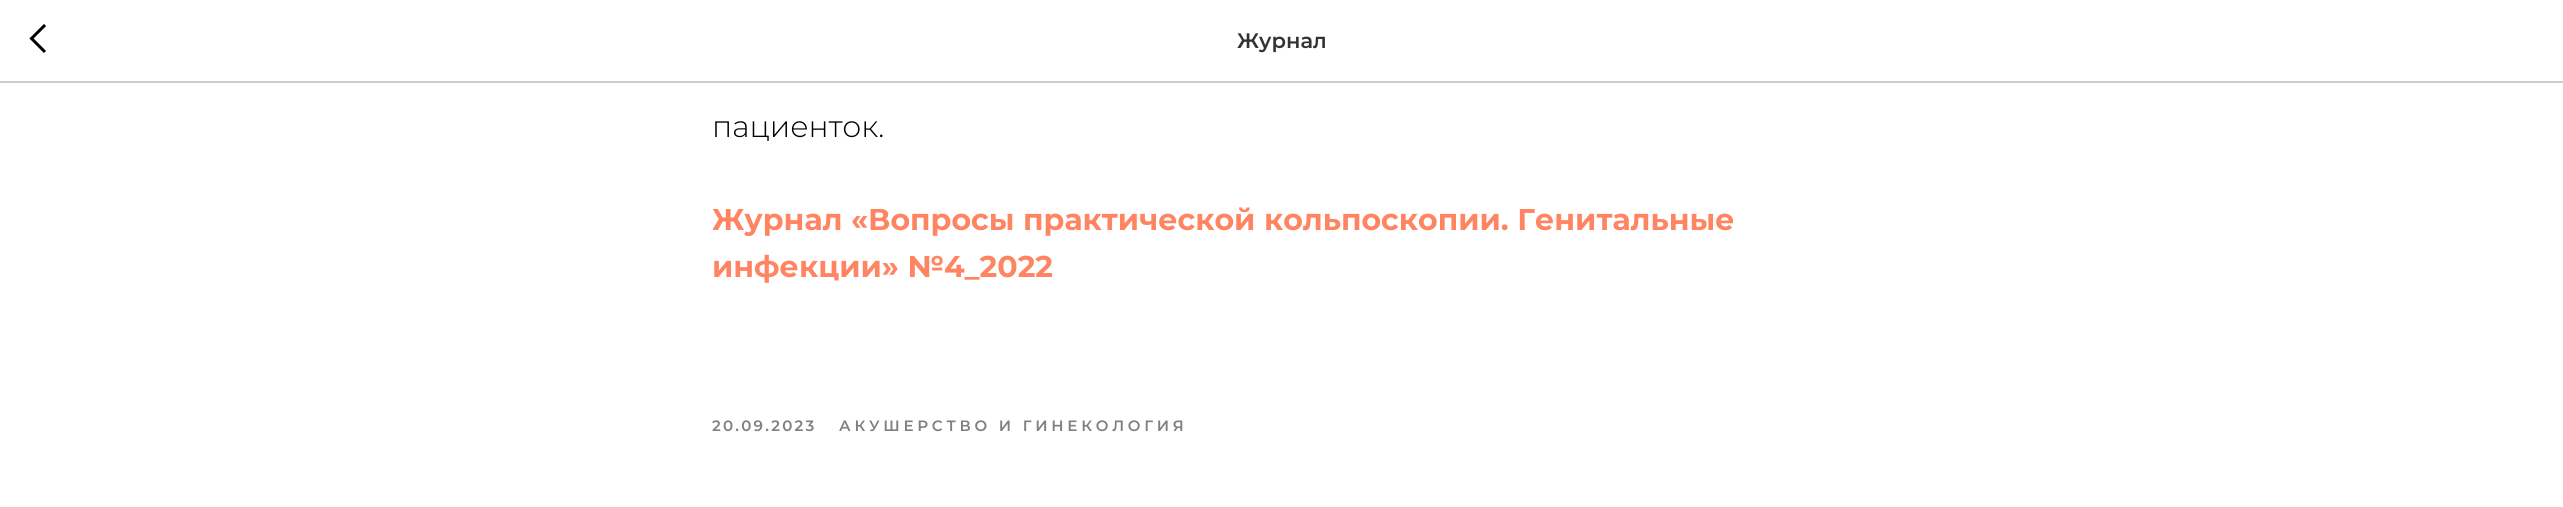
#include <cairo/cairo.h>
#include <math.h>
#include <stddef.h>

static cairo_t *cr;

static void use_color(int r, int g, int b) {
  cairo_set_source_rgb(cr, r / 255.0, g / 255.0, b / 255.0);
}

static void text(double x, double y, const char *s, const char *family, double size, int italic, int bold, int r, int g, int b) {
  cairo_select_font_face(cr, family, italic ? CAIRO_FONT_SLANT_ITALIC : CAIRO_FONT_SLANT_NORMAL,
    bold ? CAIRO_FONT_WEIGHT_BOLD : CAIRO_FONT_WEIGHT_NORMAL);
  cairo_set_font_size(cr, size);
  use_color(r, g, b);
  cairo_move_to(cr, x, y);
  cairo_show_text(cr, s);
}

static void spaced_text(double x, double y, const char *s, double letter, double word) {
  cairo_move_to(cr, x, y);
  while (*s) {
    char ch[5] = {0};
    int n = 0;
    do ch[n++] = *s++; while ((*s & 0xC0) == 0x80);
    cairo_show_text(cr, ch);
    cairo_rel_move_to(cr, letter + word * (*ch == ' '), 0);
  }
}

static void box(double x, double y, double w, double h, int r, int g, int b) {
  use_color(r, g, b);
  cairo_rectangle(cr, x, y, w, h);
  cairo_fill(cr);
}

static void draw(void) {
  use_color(255, 255, 255);
  cairo_paint(cr);
  box(0, 81, 2563, 2, 204, 204, 204);
  cairo_new_path(cr);
  cairo_move_to(cr, 45, 52);
  cairo_line_to(cr, 31.5, 38.5);
  cairo_line_to(cr, 45, 25);
  use_color(0, 0, 0);
  cairo_set_line_width(cr, 3);
  cairo_stroke(cr);
  text(1237, 48, "Журнал", "Montserrat SemiBold", 21, 0, 0, 51, 51, 51);
  text(712, 137, "пациенток.", "Montserrat Light", 30, 0, 0, 0, 0, 0);
  text(712, 230, "Журнал «Вопросы практической кольпоскопии. Генитальные", "Montserrat", 30, 0, 1, 255, 133, 98);
  text(712, 277, "инфекции» №4_2022", "Montserrat", 30, 0, 1, 255, 133, 98);
  cairo_select_font_face(cr, "Montserrat SemiBold", CAIRO_FONT_SLANT_NORMAL, CAIRO_FONT_WEIGHT_NORMAL);
  cairo_set_font_size(cr, 15);
  use_color(128, 128, 128);
  spaced_text(712, 431, "20.09.2023", 2.25, 0);
  spaced_text(839, 431, "АКУШЕРСТВО И ГИНЕКОЛОГИЯ", 3.75, 0);
}

int main(void) {
  cairo_surface_t *surface = cairo_image_surface_create(CAIRO_FORMAT_RGB24, 2563, 507);
  cr = cairo_create(surface);
  cairo_font_options_t *options = cairo_font_options_create();
  cairo_font_options_set_hint_metrics(options, CAIRO_HINT_METRICS_OFF);
  cairo_font_options_set_hint_style(options, CAIRO_HINT_STYLE_NONE);
  cairo_set_font_options(cr, options);
  cairo_set_miter_limit(cr, 4);
  draw();
  cairo_surface_write_to_png(surface, "out.png");
  cairo_font_options_destroy(options);
  cairo_destroy(cr);
  cairo_surface_destroy(surface);
  return 0;
}
